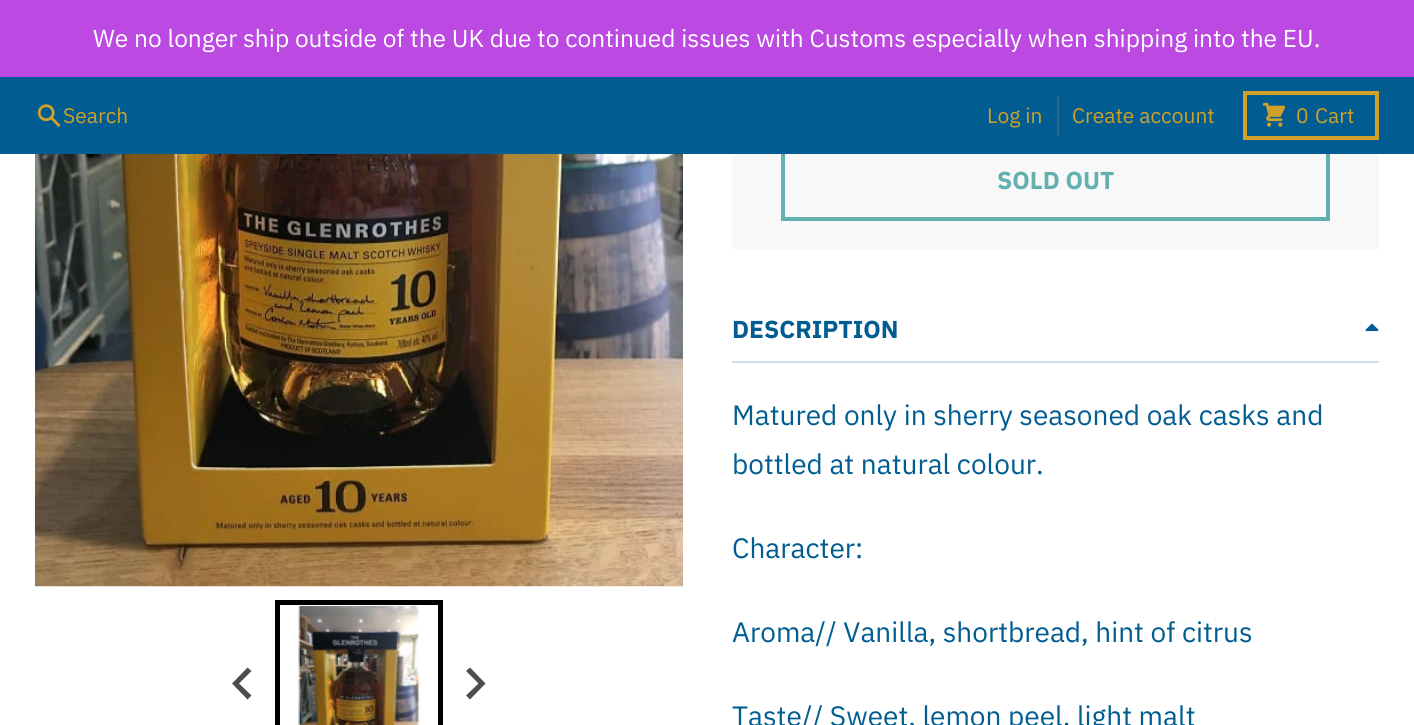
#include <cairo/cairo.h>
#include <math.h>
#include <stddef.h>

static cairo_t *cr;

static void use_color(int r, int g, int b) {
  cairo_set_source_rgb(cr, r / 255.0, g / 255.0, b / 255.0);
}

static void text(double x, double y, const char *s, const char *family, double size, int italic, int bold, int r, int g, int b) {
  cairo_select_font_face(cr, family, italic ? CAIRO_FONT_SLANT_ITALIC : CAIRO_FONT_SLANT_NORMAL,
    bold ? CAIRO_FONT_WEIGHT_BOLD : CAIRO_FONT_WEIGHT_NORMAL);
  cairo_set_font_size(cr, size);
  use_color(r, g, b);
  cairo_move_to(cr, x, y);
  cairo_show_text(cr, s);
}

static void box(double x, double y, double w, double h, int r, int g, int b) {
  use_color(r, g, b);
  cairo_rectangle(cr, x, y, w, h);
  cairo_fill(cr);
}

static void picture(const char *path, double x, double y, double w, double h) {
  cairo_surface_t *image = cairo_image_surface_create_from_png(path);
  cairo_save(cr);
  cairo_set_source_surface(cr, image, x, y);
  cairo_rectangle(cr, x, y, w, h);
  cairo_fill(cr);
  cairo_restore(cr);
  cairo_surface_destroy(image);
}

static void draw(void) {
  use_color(255, 255, 255);
  cairo_paint(cr);
  box(0, 0, 1414, 77, 188, 74, 226);
  box(732, 154, 647, 95, 248, 248, 248);
  cairo_rectangle(cr, 783, 142, 545, 77);
  use_color(99, 176, 176);
  cairo_set_line_width(cr, 4);
  cairo_stroke(cr);
  box(0, 77, 1414, 77, 0, 92, 145);
  picture("img_01.png", 37, 104, 24, 23);
  box(1057, 95, 2, 42, 42, 106, 124);
  cairo_rectangle(cr, 1245, 93, 132, 45);
  use_color(208, 160, 41);
  cairo_stroke(cr);
  picture("img_02.png", 1262, 102, 24, 25);
  picture("img_03.png", 35, 154, 648, 433);
  cairo_rectangle(cr, 277.5, 602.5, 163, 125);
  use_color(0, 0, 0);
  cairo_set_line_width(cr, 5);
  cairo_stroke(cr);
  picture("img_04.png", 298, 606, 122, 119);
  use_color(77, 77, 77);
  cairo_new_path(cr);
  cairo_move_to(cr, 247.5, 667.5);
  cairo_line_to(cr, 251.5, 671);
  cairo_line_to(cr, 239, 683.5);
  cairo_line_to(cr, 251.5, 695.5);
  cairo_line_to(cr, 247.5, 699.5);
  cairo_line_to(cr, 232, 683.5);
  cairo_close_path(cr);
  cairo_fill(cr);
  cairo_new_path(cr);
  cairo_move_to(cr, 470, 667.5);
  cairo_line_to(cr, 466, 671);
  cairo_line_to(cr, 478.5, 683.5);
  cairo_line_to(cr, 466, 695.5);
  cairo_line_to(cr, 470, 699.5);
  cairo_line_to(cr, 485.5, 683.5);
  cairo_close_path(cr);
  cairo_fill(cr);
  box(732, 361, 647, 2, 204, 222, 233);
  picture("img_05.png", 1365, 323, 14, 9);
  text(93, 47, "We no longer ship outside of the UK due to continued issues with Customs especially when shipping into the EU.", "IBM Plex Sans", 24.5, 0, 0, 255, 255, 255);
  text(63, 123, "Search", "IBM Plex Sans", 21, 0, 0, 208, 160, 41);
  text(987, 123, "Log in", "IBM Plex Sans", 21, 0, 0, 208, 160, 41);
  text(1072, 123, "Create account", "IBM Plex Sans", 21, 0, 0, 208, 160, 41);
  text(1296, 123, "0", "IBM Plex Sans", 21, 0, 0, 208, 160, 41);
  text(1315, 123, "Cart", "IBM Plex Sans", 21, 0, 0, 208, 160, 41);
  text(997, 189, "SOLD OUT", "IBM Plex Sans", 24.5, 0, 1, 99, 176, 176);
  text(732, 338, "DESCRIPTION", "IBM Plex Sans", 24.5, 0, 1, 0, 92, 145);
  text(732, 425, "Matured only in sherry seasoned oak casks and", "IBM Plex Sans", 28, 0, 0, 0, 92, 145);
  text(732, 474, "bottled at natural colour.", "IBM Plex Sans", 28, 0, 0, 0, 92, 145);
  text(732, 558, "Character:", "IBM Plex Sans", 28, 0, 0, 0, 92, 145);
  text(732, 642, "Aroma// Vanilla, shortbread, hint of citrus", "IBM Plex Sans", 28, 0, 0, 0, 92, 145);
  text(732, 726, "Taste// Sweet, lemon peel, light malt", "IBM Plex Sans", 28, 0, 0, 0, 92, 145);
}

int main(void) {
  cairo_surface_t *surface = cairo_image_surface_create(CAIRO_FORMAT_RGB24, 1414, 725);
  cr = cairo_create(surface);
  cairo_font_options_t *options = cairo_font_options_create();
  cairo_font_options_set_hint_metrics(options, CAIRO_HINT_METRICS_OFF);
  cairo_font_options_set_hint_style(options, CAIRO_HINT_STYLE_NONE);
  cairo_set_font_options(cr, options);
  cairo_set_miter_limit(cr, 4);
  draw();
  cairo_surface_write_to_png(surface, "out.png");
  cairo_font_options_destroy(options);
  cairo_destroy(cr);
  cairo_surface_destroy(surface);
  return 0;
}
